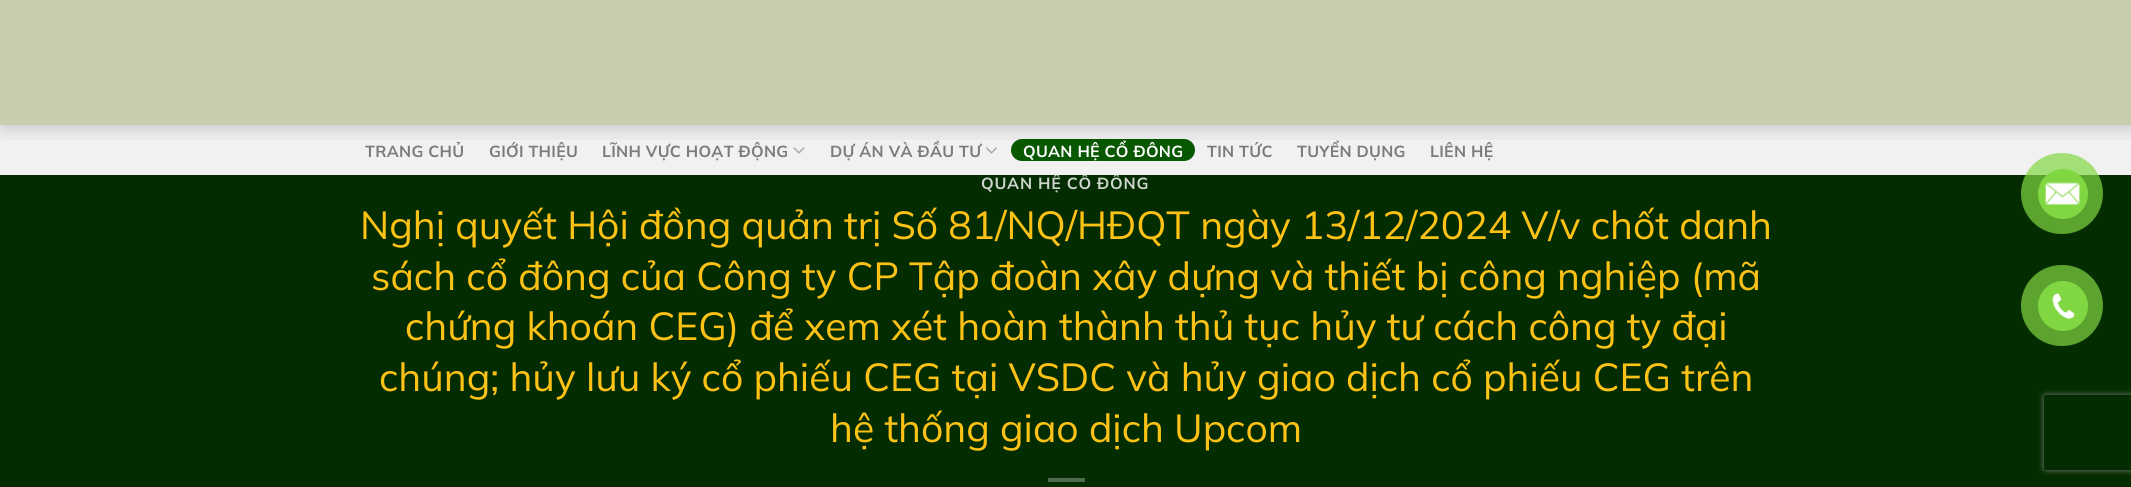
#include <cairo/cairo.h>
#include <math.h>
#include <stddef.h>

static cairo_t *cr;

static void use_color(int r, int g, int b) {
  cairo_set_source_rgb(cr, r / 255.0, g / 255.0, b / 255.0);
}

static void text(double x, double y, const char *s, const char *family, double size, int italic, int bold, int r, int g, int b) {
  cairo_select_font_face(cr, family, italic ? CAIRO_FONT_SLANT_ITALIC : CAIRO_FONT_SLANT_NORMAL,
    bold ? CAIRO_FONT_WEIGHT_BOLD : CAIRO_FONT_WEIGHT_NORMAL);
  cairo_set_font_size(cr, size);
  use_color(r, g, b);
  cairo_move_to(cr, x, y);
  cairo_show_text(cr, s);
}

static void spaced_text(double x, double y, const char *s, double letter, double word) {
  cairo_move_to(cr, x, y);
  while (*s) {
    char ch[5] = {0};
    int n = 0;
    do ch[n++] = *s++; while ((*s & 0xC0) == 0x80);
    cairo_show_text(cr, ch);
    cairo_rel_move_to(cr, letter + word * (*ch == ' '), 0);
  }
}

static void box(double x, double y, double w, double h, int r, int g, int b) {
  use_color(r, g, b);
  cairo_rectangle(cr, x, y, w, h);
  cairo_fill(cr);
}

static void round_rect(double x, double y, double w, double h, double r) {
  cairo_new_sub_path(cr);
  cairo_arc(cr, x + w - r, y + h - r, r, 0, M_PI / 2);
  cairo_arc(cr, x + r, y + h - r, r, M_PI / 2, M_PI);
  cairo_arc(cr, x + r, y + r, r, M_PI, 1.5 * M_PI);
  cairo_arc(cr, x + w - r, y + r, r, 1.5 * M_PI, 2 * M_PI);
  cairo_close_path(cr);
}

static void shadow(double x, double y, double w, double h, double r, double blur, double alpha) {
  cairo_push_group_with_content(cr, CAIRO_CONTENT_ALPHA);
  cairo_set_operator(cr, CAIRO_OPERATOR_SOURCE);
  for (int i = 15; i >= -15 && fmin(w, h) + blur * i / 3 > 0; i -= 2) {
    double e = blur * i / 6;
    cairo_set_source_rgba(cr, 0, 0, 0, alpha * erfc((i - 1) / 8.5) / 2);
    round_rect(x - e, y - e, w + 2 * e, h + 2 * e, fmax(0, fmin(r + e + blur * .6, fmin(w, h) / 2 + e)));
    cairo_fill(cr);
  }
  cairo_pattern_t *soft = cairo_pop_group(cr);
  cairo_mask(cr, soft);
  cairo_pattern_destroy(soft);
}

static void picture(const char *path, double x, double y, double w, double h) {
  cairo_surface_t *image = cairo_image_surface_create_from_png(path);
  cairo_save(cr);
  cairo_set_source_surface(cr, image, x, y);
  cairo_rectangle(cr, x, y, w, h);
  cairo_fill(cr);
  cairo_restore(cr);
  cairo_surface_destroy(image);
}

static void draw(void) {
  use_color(4, 44, 1);
  cairo_paint(cr);
  cairo_set_source_rgba(cr, 0.867, 0.867, 0.757, 0.7);
  cairo_rectangle(cr, 0, 0, 2131, 125);
  cairo_fill(cr);
  cairo_rectangle(cr, 0, 0, 2131, 125);
  cairo_fill(cr);
  box(1048, 478, 37, 4, 79, 107, 77);
  use_color(92, 164, 47);
  round_rect(2021, 265, 82, 81, 40.5);
  cairo_fill(cr);
  use_color(129, 215, 66);
  cairo_arc(cr, 2063, 306, 25, 0, 2 * M_PI);
  cairo_fill(cr);
  picture("img_04.png", 2052, 293, 23, 26);
  cairo_save(cr);
  cairo_set_fill_rule(cr, CAIRO_FILL_RULE_EVEN_ODD);
  cairo_new_path(cr);
  cairo_move_to(cr, 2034, 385);
  cairo_line_to(cr, 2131, 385);
  cairo_line_to(cr, 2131, 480);
  cairo_line_to(cr, 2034, 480);
  cairo_close_path(cr);
  cairo_move_to(cr, 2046.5, 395);
  cairo_line_to(cr, 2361.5, 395);
  cairo_curve_to(cr, 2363, 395, 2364, 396, 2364, 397.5);
  cairo_line_to(cr, 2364, 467.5);
  cairo_curve_to(cr, 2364, 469, 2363, 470, 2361.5, 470);
  cairo_line_to(cr, 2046.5, 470);
  cairo_curve_to(cr, 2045, 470, 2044, 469, 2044, 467.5);
  cairo_line_to(cr, 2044, 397.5);
  cairo_curve_to(cr, 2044, 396, 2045, 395, 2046.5, 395);
  cairo_close_path(cr);
  cairo_clip(cr);
  use_color(128, 128, 128);
  shadow(2044, 395, 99, 75, 2.5, 3, 1);
  cairo_restore(cr);
  cairo_select_font_face(cr, "Mulish", CAIRO_FONT_SLANT_NORMAL, CAIRO_FONT_WEIGHT_BOLD);
  cairo_set_font_size(cr, 16.1);
  use_color(205, 213, 204);
  spaced_text(981, 189, "QUAN HỆ CỔ ĐÔNG", 0.75, 0);
  box(0, 125, 2131, 50, 241, 241, 241);
  use_color(8, 88, 1);
  round_rect(1011, 139, 184, 22, 11);
  cairo_fill(cr);
  picture("img_02.png", 986, 147, 11, 7);
  picture("img_01.png", 793, 147, 12, 7);
  cairo_save(cr);
  cairo_rectangle(cr, 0, 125, 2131, 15);
  cairo_clip(cr);
  use_color(0, 0, 0);
  shadow(3, 3, 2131, 125, 0, 9.5, 0.2);
  cairo_restore(cr);
  cairo_set_font_size(cr, 16);
  use_color(123, 123, 123);
  spaced_text(1430, 157, "LIÊN HỆ", 0.3, 0);
  spaced_text(1297, 157, "TUYỂN DỤNG", 0.3, 0);
  spaced_text(1207, 157, "TIN TỨC", 0.3, 0);
  use_color(255, 255, 255);
  spaced_text(1023, 157, "QUAN HỆ CỔ ĐÔNG", 0.3, 0);
  use_color(123, 123, 123);
  spaced_text(830, 157, "DỰ ÁN VÀ ĐẦU TƯ", 0.3, 0);
  spaced_text(602, 157, "LĨNH VỰC HOẠT ĐỘNG", 0.3, 0);
  spaced_text(489, 157, "GIỚI THIỆU", 0.3, 0);
  spaced_text(365, 157, "TRANG CHỦ", 0.3, 0);
  text(360, 239, "Nghị quyết Hội đồng quản trị Số 81/NQ/HĐQT ngày 13/12/2024 V/v chốt danh", "Mulish", 39.1, 0, 0, 253, 194, 21);
  text(371, 290, "sách cổ đông của Công ty CP Tập đoàn xây dựng và thiết bị công nghiệp (mã", "Mulish", 39.1, 0, 0, 253, 194, 21);
  text(405, 340, "chứng khoán CEG) để xem xét hoàn thành thủ tục hủy tư cách công ty đại", "Mulish", 39.1, 0, 0, 253, 194, 21);
  text(379, 391, "chúng; hủy lưu ký cổ phiếu CEG tại VSDC và hủy giao dịch cổ phiếu CEG trên", "Mulish", 39.1, 0, 0, 253, 194, 21);
  text(830, 442, "hệ thống giao dịch Upcom", "Mulish", 39.1, 0, 0, 253, 194, 21);
  cairo_set_source_rgba(cr, 0.506, 0.843, 0.259, 0.7);
  round_rect(2021, 153, 82, 81, 40.5);
  cairo_fill(cr);
  use_color(129, 215, 66);
  cairo_arc(cr, 2063, 194, 25, 0, 2 * M_PI);
  cairo_fill(cr);
  picture("img_03.png", 2045, 182, 35, 23);
}

int main(void) {
  cairo_surface_t *surface = cairo_image_surface_create(CAIRO_FORMAT_RGB24, 2131, 487);
  cr = cairo_create(surface);
  cairo_font_options_t *options = cairo_font_options_create();
  cairo_font_options_set_hint_metrics(options, CAIRO_HINT_METRICS_OFF);
  cairo_font_options_set_hint_style(options, CAIRO_HINT_STYLE_NONE);
  cairo_set_font_options(cr, options);
  cairo_set_miter_limit(cr, 4);
  draw();
  cairo_surface_write_to_png(surface, "out.png");
  cairo_font_options_destroy(options);
  cairo_destroy(cr);
  cairo_surface_destroy(surface);
  return 0;
}
